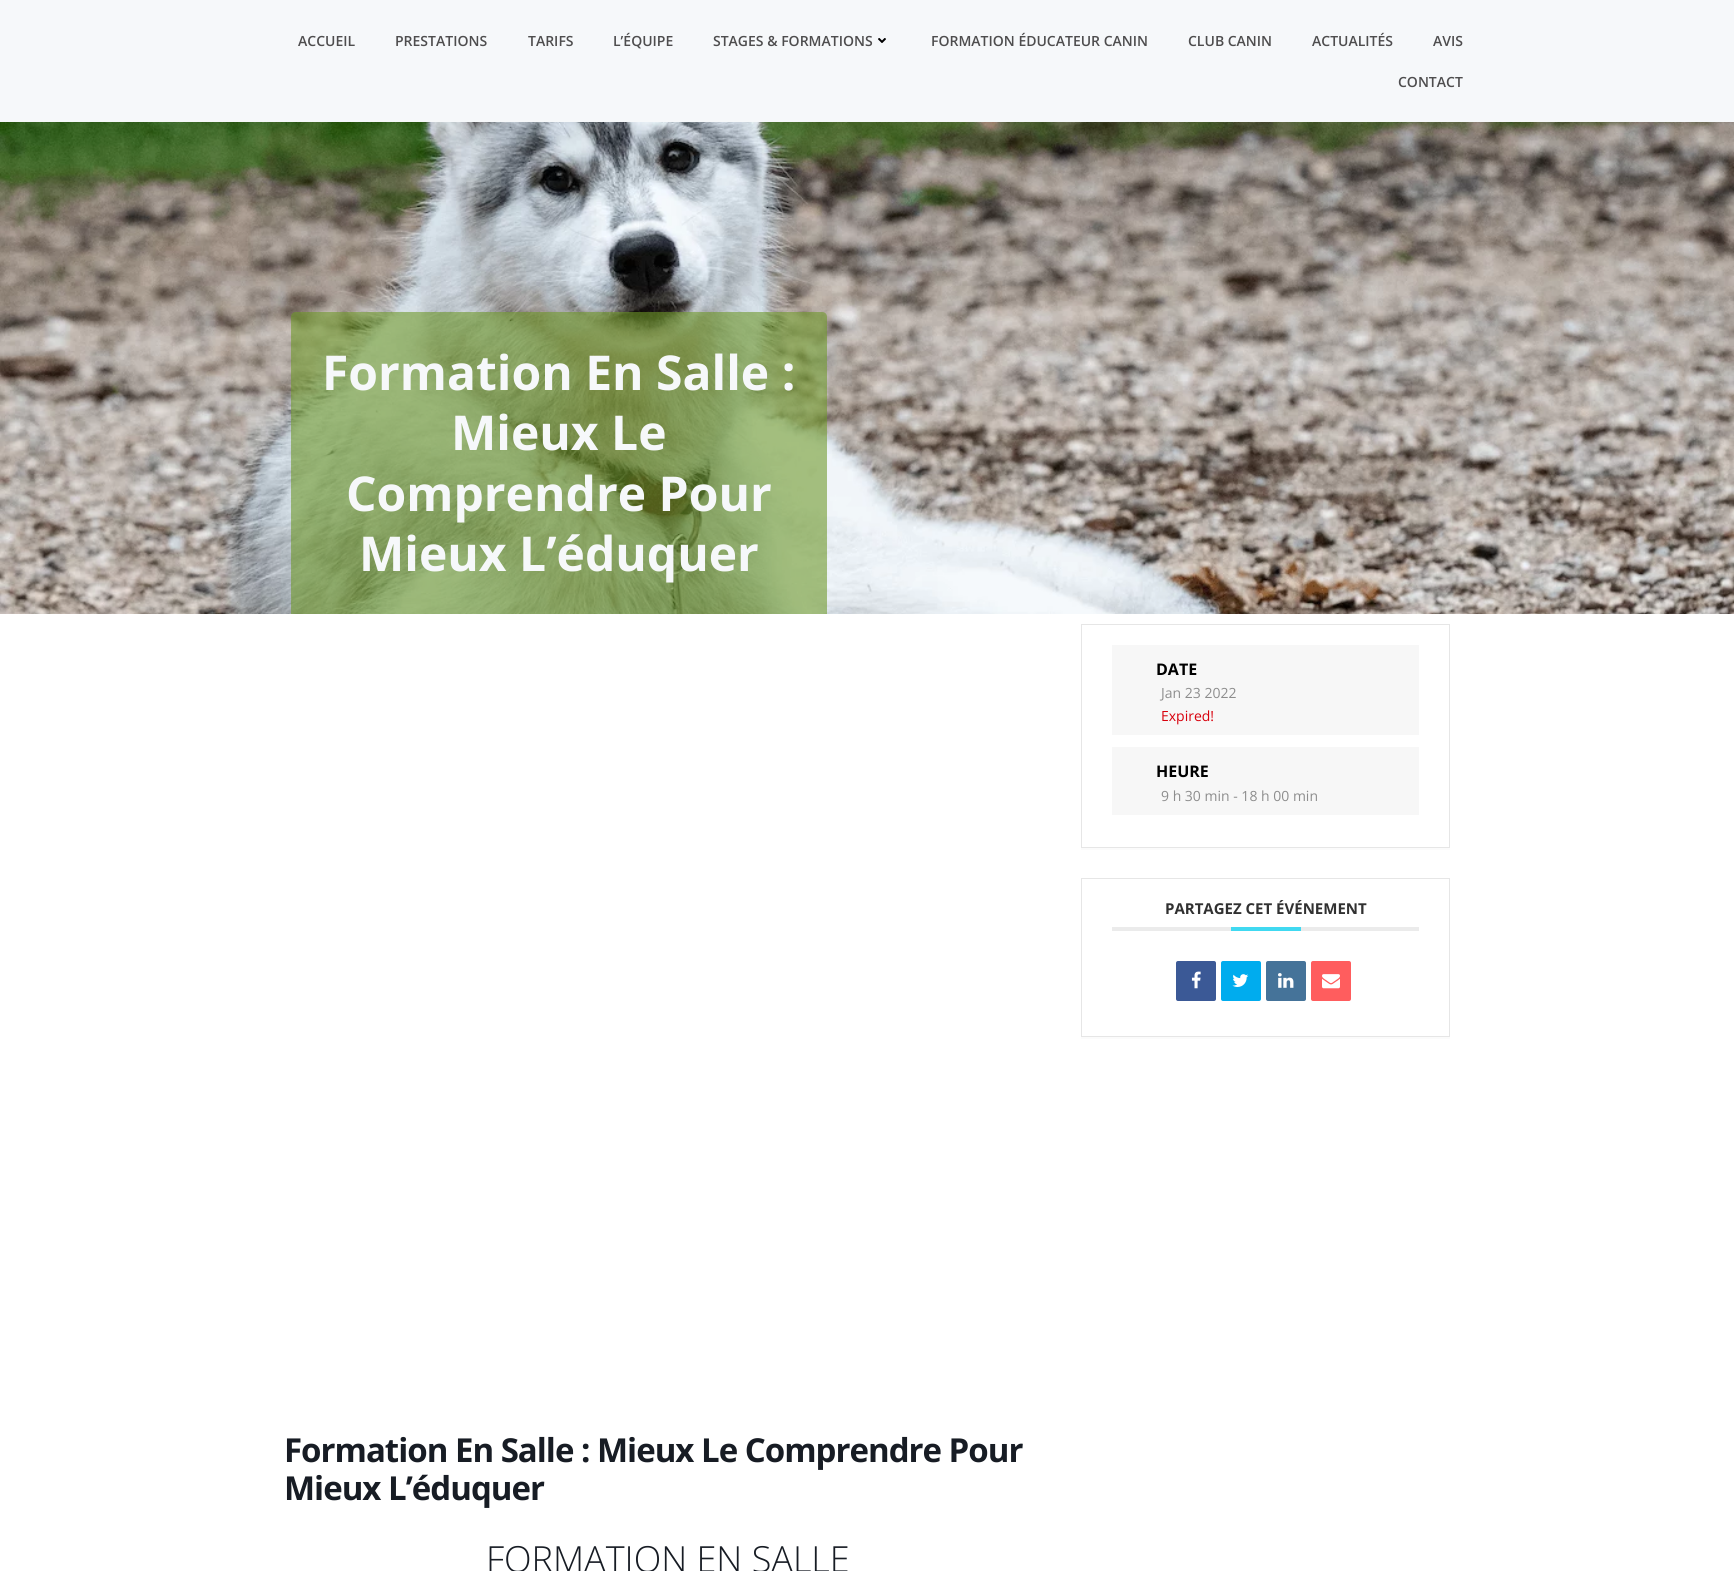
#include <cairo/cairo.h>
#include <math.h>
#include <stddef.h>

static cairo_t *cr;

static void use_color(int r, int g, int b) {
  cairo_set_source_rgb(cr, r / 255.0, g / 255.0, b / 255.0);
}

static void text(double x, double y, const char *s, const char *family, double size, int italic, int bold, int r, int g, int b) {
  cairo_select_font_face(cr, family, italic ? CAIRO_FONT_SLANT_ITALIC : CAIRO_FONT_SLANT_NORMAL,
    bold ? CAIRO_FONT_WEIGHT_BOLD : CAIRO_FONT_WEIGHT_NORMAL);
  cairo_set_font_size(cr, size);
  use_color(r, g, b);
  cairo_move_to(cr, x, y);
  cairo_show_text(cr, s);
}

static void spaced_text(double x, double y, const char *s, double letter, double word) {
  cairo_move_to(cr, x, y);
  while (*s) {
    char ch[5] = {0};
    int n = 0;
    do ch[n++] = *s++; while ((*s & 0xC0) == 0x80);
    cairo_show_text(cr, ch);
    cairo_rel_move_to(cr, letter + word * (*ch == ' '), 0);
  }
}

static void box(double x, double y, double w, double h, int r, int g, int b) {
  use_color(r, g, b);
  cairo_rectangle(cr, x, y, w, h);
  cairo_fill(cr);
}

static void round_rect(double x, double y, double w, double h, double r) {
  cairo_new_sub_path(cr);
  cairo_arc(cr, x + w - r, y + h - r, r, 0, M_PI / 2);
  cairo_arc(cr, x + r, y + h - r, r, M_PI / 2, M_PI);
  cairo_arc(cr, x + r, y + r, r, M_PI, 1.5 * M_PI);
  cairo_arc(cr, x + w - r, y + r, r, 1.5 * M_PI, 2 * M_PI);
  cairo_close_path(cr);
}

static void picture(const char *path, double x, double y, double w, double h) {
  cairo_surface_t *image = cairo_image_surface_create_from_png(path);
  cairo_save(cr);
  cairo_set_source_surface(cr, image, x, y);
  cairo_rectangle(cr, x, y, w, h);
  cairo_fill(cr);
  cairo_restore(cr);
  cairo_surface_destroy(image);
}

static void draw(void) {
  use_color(255, 255, 255);
  cairo_paint(cr);
  box(0, 0, 1734, 122, 246, 248, 250);
  picture("img_01.png", 878, 38, 8, 5);
  picture("img_02.png", 0, 122, 1734, 492);
  cairo_set_source_rgba(cr, 0.435, 0.6, 0.161, 0.59);
  cairo_new_path(cr);
  cairo_move_to(cr, 296, 312);
  cairo_line_to(cr, 822, 312);
  cairo_curve_to(cr, 825, 312, 827, 314, 827, 317);
  cairo_line_to(cr, 827, 614);
  cairo_line_to(cr, 291, 614);
  cairo_line_to(cr, 291, 317);
  cairo_curve_to(cr, 291, 314, 293, 312, 296, 312);
  cairo_close_path(cr);
  cairo_fill(cr);
  box(1081, 848, 369, 2, 251, 251, 251);
  cairo_rectangle(cr, 1081.5, 624.5, 368, 223);
  use_color(230, 230, 230);
  cairo_set_line_width(cr, 1);
  cairo_stroke(cr);
  box(1112, 645, 307, 90, 247, 247, 247);
  box(1112, 747, 307, 68, 247, 247, 247);
  box(1081, 1037, 369, 2, 251, 251, 251);
  cairo_rectangle(cr, 1081.5, 878.5, 368, 158);
  use_color(230, 230, 230);
  cairo_stroke(cr);
  box(1112, 927, 307, 4, 235, 235, 235);
  box(1231, 927, 70, 4, 64, 217, 241);
  use_color(59, 89, 150);
  round_rect(1176, 961, 40, 40, 2);
  cairo_fill(cr);
  picture("img_03.png", 1191, 971, 10, 18);
  use_color(0, 172, 238);
  round_rect(1221, 961, 40, 40, 2);
  cairo_fill(cr);
  picture("img_04.png", 1232, 974, 17, 13);
  use_color(69, 115, 153);
  round_rect(1266, 961, 40, 40, 2);
  cairo_fill(cr);
  picture("img_05.png", 1278, 973, 16, 15);
  use_color(255, 93, 94);
  round_rect(1311, 961, 40, 40, 2);
  cairo_fill(cr);
  picture("img_06.png", 1322, 974, 18, 15);
  text(298, 46, "ACCUEIL", "Open Sans SemiBold", 14, 0, 0, 78, 77, 78);
  text(395, 46, "PRESTATIONS", "Open Sans SemiBold", 14, 0, 0, 78, 77, 78);
  text(528, 46, "TARIFS", "Open Sans SemiBold", 14, 0, 0, 78, 77, 78);
  text(613, 46, "L’ÉQUIPE", "Open Sans SemiBold", 14, 0, 0, 78, 77, 78);
  text(713, 46, "STAGES & FORMATIONS", "Open Sans SemiBold", 14, 0, 0, 78, 77, 78);
  text(931, 46, "FORMATION ÉDUCATEUR CANIN", "Open Sans SemiBold", 14, 0, 0, 78, 77, 78);
  text(1188, 46, "CLUB CANIN", "Open Sans SemiBold", 14, 0, 0, 78, 77, 78);
  text(1312, 46, "ACTUALITÉS", "Open Sans SemiBold", 14, 0, 0, 78, 77, 78);
  text(1433, 46, "AVIS", "Open Sans SemiBold", 14, 0, 0, 78, 77, 78);
  text(1398, 87, "CONTACT", "Open Sans SemiBold", 14, 0, 0, 78, 77, 78);
  text(322, 390, "Formation En Salle :", "Open Sans", 48, 0, 1, 246, 248, 250);
  text(451, 450, "Mieux Le", "Open Sans", 48, 0, 1, 246, 248, 250);
  text(346, 511, "Comprendre Pour", "Open Sans", 48, 0, 1, 246, 248, 250);
  text(359, 571, "Mieux L’éduquer", "Open Sans", 48, 0, 1, 246, 248, 250);
  text(1156, 675, "DATE", "Open Sans", 16, 0, 1, 0, 0, 0);
  text(1161, 698, "Jan 23 2022", "Open Sans", 14, 0, 0, 141, 141, 141);
  text(1161, 721, "Expired!", "Open Sans", 14, 0, 0, 216, 0, 12);
  text(1156, 777, "HEURE", "Open Sans", 16, 0, 1, 0, 0, 0);
  text(1161, 801, "9 h 30 min - 18 h 00 min", "Open Sans", 14, 0, 0, 141, 141, 141);
  text(1165, 914, "PARTAGEZ CET ÉVÉNEMENT", "Open Sans", 15, 0, 1, 49, 49, 49);
  cairo_set_font_size(cr, 33);
  use_color(23, 28, 36);
  spaced_text(284, 1462, "Formation En Salle : Mieux Le Comprendre Pour", -1, 0);
  spaced_text(284, 1500, "Mieux L’éduquer", -1, 0);
  text(486, 1572, "FORMATION EN SALLE", "Open Sans Light", 36, 0, 0, 23, 28, 36);
}

int main(void) {
  cairo_surface_t *surface = cairo_image_surface_create(CAIRO_FORMAT_RGB24, 1734, 1571);
  cr = cairo_create(surface);
  cairo_font_options_t *options = cairo_font_options_create();
  cairo_font_options_set_hint_metrics(options, CAIRO_HINT_METRICS_OFF);
  cairo_font_options_set_hint_style(options, CAIRO_HINT_STYLE_NONE);
  cairo_set_font_options(cr, options);
  cairo_set_miter_limit(cr, 4);
  draw();
  cairo_surface_write_to_png(surface, "out.png");
  cairo_font_options_destroy(options);
  cairo_destroy(cr);
  cairo_surface_destroy(surface);
  return 0;
}
